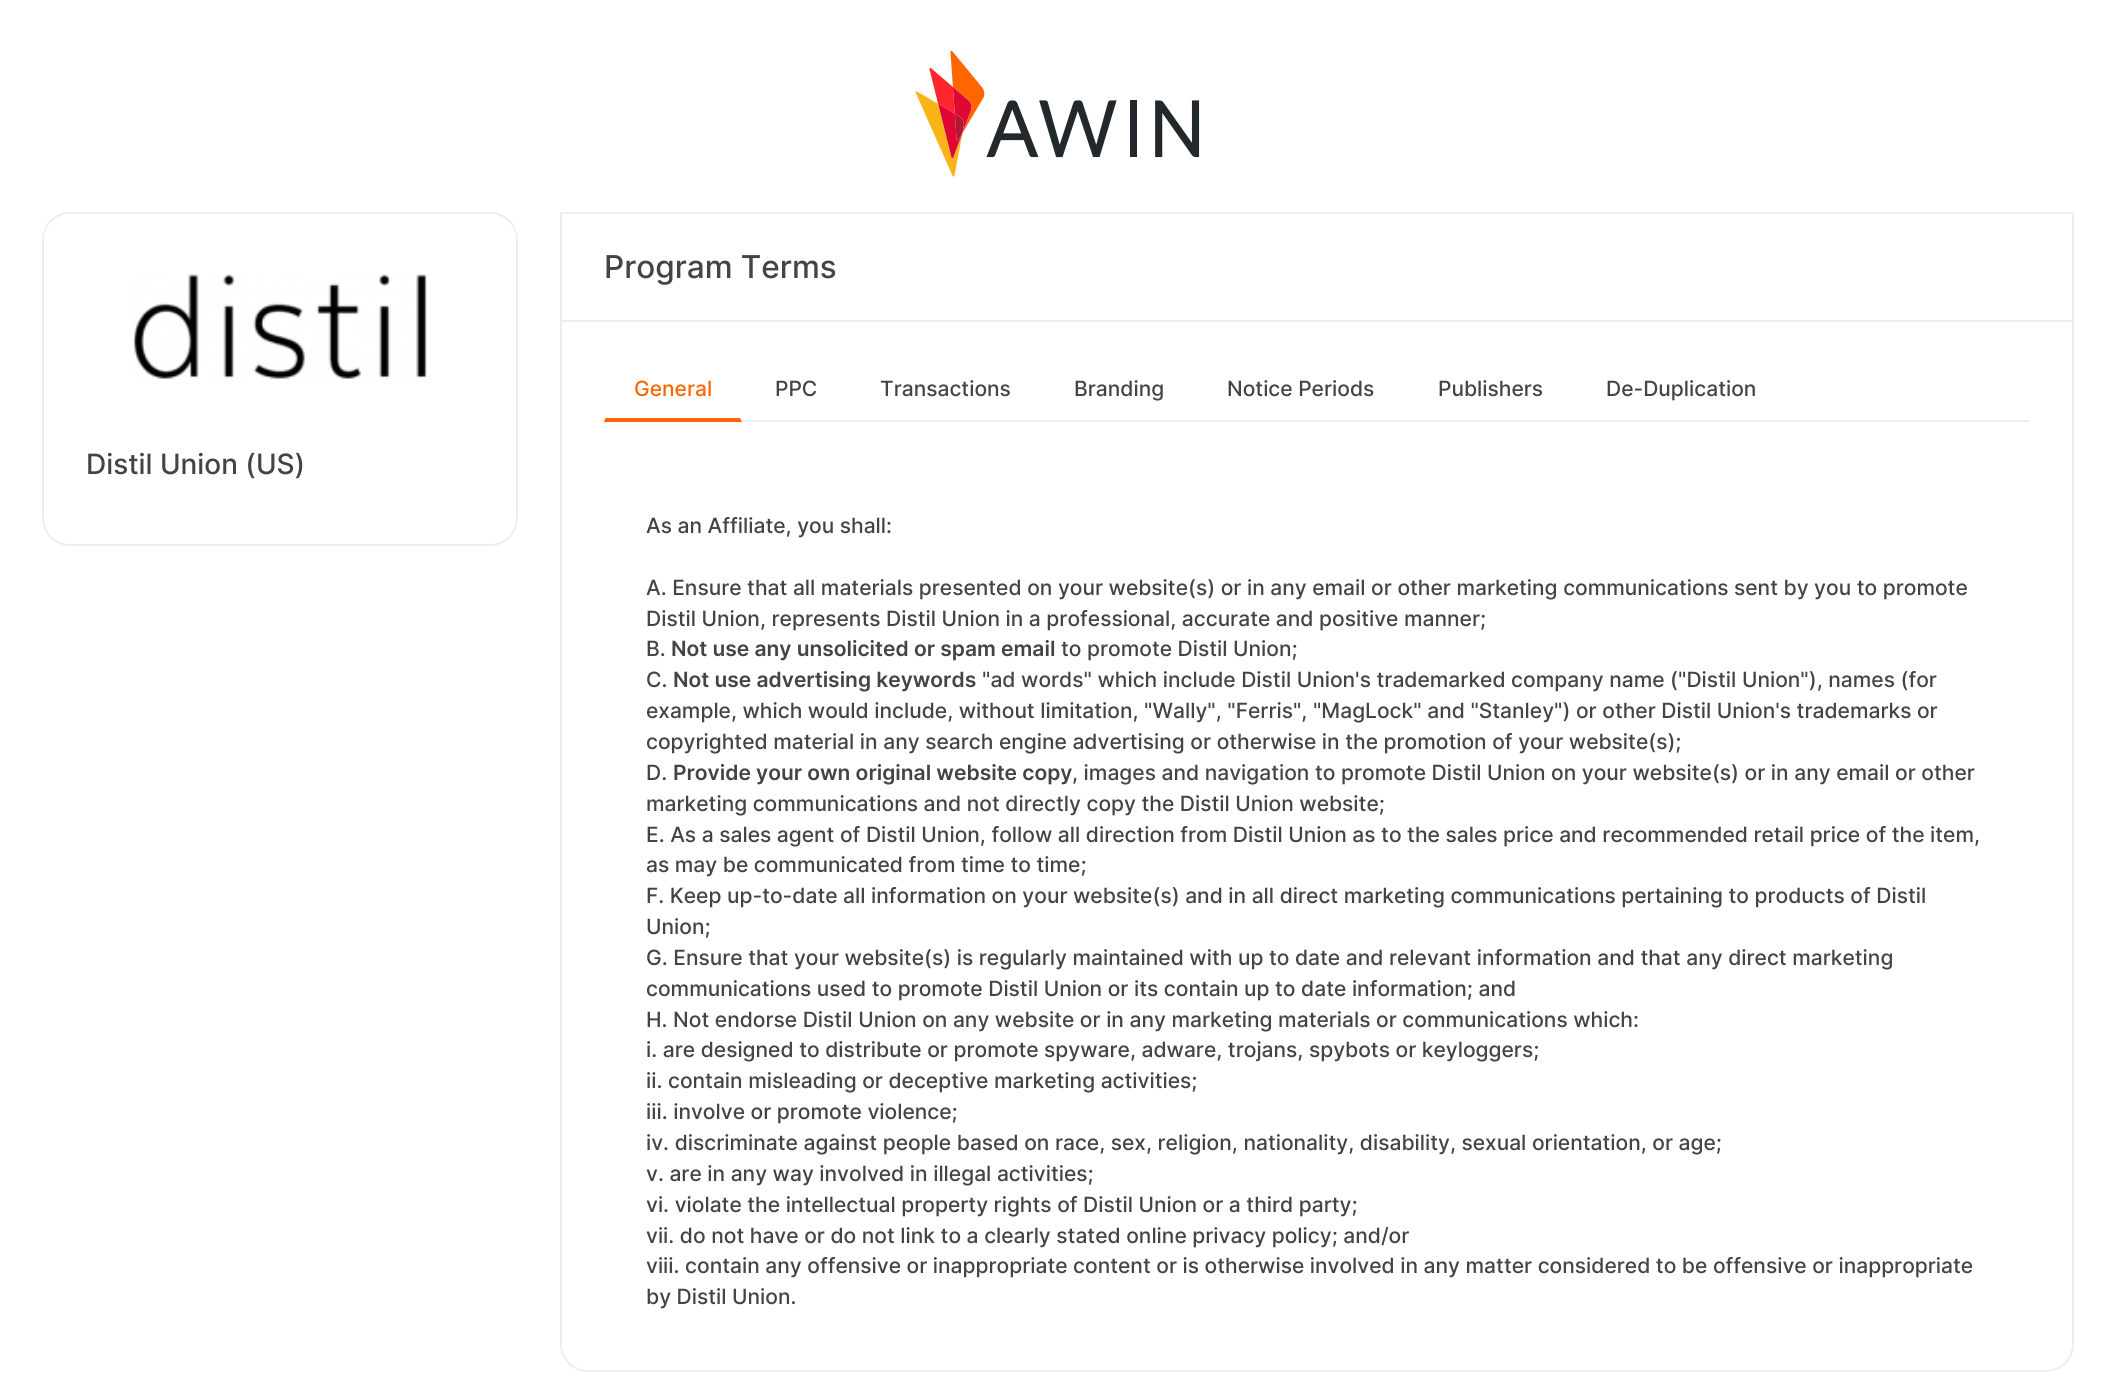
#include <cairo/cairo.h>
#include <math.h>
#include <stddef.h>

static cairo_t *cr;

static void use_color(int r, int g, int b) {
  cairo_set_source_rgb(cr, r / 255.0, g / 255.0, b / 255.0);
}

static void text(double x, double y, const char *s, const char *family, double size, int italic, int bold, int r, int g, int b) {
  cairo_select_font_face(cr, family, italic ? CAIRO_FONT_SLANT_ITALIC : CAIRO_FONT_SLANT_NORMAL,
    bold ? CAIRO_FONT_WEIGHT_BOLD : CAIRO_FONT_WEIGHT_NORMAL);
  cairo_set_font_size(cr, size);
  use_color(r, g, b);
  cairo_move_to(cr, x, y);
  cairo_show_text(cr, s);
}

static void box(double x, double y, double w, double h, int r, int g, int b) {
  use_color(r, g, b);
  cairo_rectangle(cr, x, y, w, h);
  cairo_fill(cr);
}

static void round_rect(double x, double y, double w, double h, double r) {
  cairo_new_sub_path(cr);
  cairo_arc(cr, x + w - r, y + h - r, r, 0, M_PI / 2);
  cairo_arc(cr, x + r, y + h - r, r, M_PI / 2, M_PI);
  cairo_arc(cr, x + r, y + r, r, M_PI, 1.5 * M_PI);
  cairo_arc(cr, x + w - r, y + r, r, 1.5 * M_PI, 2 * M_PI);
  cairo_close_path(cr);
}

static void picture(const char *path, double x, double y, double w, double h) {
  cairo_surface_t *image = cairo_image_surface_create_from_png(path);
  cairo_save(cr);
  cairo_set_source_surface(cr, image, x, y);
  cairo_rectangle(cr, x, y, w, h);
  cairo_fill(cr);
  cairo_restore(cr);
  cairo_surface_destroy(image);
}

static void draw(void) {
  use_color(255, 255, 255);
  cairo_paint(cr);
  picture("img_01.png", 915, 51, 285, 126);
  round_rect(43, 213, 474, 332, 27);
  use_color(238, 238, 238);
  cairo_stroke(cr);
  picture("img_02.png", 133, 274, 294, 106);
  cairo_new_path(cr);
  cairo_move_to(cr, 561, 213);
  cairo_line_to(cr, 2073, 213);
  cairo_line_to(cr, 2073, 1344);
  cairo_curve_to(cr, 2073, 1359, 2061, 1371, 2046, 1371);
  cairo_line_to(cr, 588, 1371);
  cairo_curve_to(cr, 573, 1371, 561, 1359, 561, 1344);
  cairo_close_path(cr);
  cairo_stroke(cr);
  box(562, 320, 1510, 2, 238, 238, 238);
  box(604, 420, 1426, 2, 238, 238, 238);
  use_color(255, 102, 0);
  cairo_new_path(cr);
  cairo_move_to(cr, 742, 422);
  cairo_line_to(cr, 604, 422);
  cairo_line_to(cr, 606, 417);
  cairo_line_to(cr, 606, 418);
  cairo_line_to(cr, 740, 418);
  cairo_close_path(cr);
  cairo_fill(cr);
  text(86, 474, "Distil Union (US)", "Inter Medium", 28, 0, 0, 68, 68, 68);
  text(604, 278, "Program Terms", "Inter Medium", 31.5, 0, 0, 68, 68, 68);
  text(634, 396, "General", "Inter Medium", 21, 0, 0, 255, 102, 0);
  text(775, 396, "PPC", "Inter Medium", 21, 0, 0, 68, 68, 68);
  text(880, 396, "Transactions", "Inter Medium", 21, 0, 0, 68, 68, 68);
  text(1074, 396, "Branding", "Inter Medium", 21, 0, 0, 68, 68, 68);
  text(1227, 396, "Notice Periods", "Inter Medium", 21, 0, 0, 68, 68, 68);
  text(1438, 396, "Publishers", "Inter Medium", 21, 0, 0, 68, 68, 68);
  text(1606, 396, "De-Duplication", "Inter Medium", 21, 0, 0, 68, 68, 68);
  text(646, 533, "As an Affiliate, you shall:", "Inter Medium", 21, 0, 0, 68, 68, 68);
  text(646, 595, "A. Ensure that all materials presented on your website(s) or in any email or other marketing communications sent by you to promote", "Inter Medium", 21, 0, 0, 68, 68, 68);
  text(646, 626, "Distil Union, represents Distil Union in a professional, accurate and positive manner;", "Inter Medium", 21, 0, 0, 68, 68, 68);
  text(646, 656, "B.", "Inter Medium", 21, 0, 0, 68, 68, 68);
  text(671, 656, "Not use any unsolicited or spam email", "Inter SemiBold", 21, 0, 0, 68, 68, 68);
  text(1061, 656, "to promote Distil Union;", "Inter Medium", 21, 0, 0, 68, 68, 68);
  text(646, 687, "C.", "Inter Medium", 21, 0, 0, 68, 68, 68);
  text(673, 687, "Not use advertising keywords", "Inter SemiBold", 21, 0, 0, 68, 68, 68);
  text(982, 687, "\"ad words\" which include Distil Union's trademarked company name (\"Distil Union\"), names (for", "Inter Medium", 21, 0, 0, 68, 68, 68);
  text(646, 718, "example, which would include, without limitation, \"Wally\", \"Ferris\", \"MagLock\" and \"Stanley\") or other Distil Union's trademarks or", "Inter Medium", 21, 0, 0, 68, 68, 68);
  text(646, 749, "copyrighted material in any search engine advertising or otherwise in the promotion of your website(s);", "Inter Medium", 21, 0, 0, 68, 68, 68);
  text(646, 780, "D.", "Inter Medium", 21, 0, 0, 68, 68, 68);
  text(673, 780, "Provide your own original website copy", "Inter SemiBold", 21, 0, 0, 68, 68, 68);
  text(1072, 780, ", images and navigation to promote Distil Union on your website(s) or in any email or other", "Inter Medium", 21, 0, 0, 68, 68, 68);
  text(646, 811, "marketing communications and not directly copy the Distil Union website;", "Inter Medium", 21, 0, 0, 68, 68, 68);
  text(646, 842, "E. As a sales agent of Distil Union, follow all direction from Distil Union as to the sales price and recommended retail price of the item,", "Inter Medium", 21, 0, 0, 68, 68, 68);
  text(646, 872, "as may be communicated from time to time;", "Inter Medium", 21, 0, 0, 68, 68, 68);
  text(646, 903, "F. Keep up-to-date all information on your website(s) and in all direct marketing communications pertaining to products of Distil", "Inter Medium", 21, 0, 0, 68, 68, 68);
  text(646, 934, "Union;", "Inter Medium", 21, 0, 0, 68, 68, 68);
  text(646, 965, "G. Ensure that your website(s) is regularly maintained with up to date and relevant information and that any direct marketing", "Inter Medium", 21, 0, 0, 68, 68, 68);
  text(646, 996, "communications used to promote Distil Union or its contain up to date information; and", "Inter Medium", 21, 0, 0, 68, 68, 68);
  text(646, 1027, "H. Not endorse Distil Union on any website or in any marketing materials or communications which:", "Inter Medium", 21, 0, 0, 68, 68, 68);
  text(646, 1057, "i. are designed to distribute or promote spyware, adware, trojans, spybots or keyloggers;", "Inter Medium", 21, 0, 0, 68, 68, 68);
  text(646, 1088, "ii. contain misleading or deceptive marketing activities;", "Inter Medium", 21, 0, 0, 68, 68, 68);
  text(646, 1119, "iii. involve or promote violence;", "Inter Medium", 21, 0, 0, 68, 68, 68);
  text(646, 1150, "iv. discriminate against people based on race, sex, religion, nationality, disability, sexual orientation, or age;", "Inter Medium", 21, 0, 0, 68, 68, 68);
  text(646, 1181, "v. are in any way involved in illegal activities;", "Inter Medium", 21, 0, 0, 68, 68, 68);
  text(646, 1212, "vi. violate the intellectual property rights of Distil Union or a third party;", "Inter Medium", 21, 0, 0, 68, 68, 68);
  text(646, 1243, "vii. do not have or do not link to a clearly stated online privacy policy; and/or", "Inter Medium", 21, 0, 0, 68, 68, 68);
  text(646, 1273, "viii. contain any offensive or inappropriate content or is otherwise involved in any matter considered to be offensive or inappropriate", "Inter Medium", 21, 0, 0, 68, 68, 68);
  text(646, 1304, "by Distil Union.", "Inter Medium", 21, 0, 0, 68, 68, 68);
}

int main(void) {
  cairo_surface_t *surface = cairo_image_surface_create(CAIRO_FORMAT_RGB24, 2115, 1391);
  cr = cairo_create(surface);
  cairo_font_options_t *options = cairo_font_options_create();
  cairo_font_options_set_hint_metrics(options, CAIRO_HINT_METRICS_OFF);
  cairo_font_options_set_hint_style(options, CAIRO_HINT_STYLE_NONE);
  cairo_set_font_options(cr, options);
  cairo_set_miter_limit(cr, 4);
  draw();
  cairo_surface_write_to_png(surface, "out.png");
  cairo_font_options_destroy(options);
  cairo_destroy(cr);
  cairo_surface_destroy(surface);
  return 0;
}
